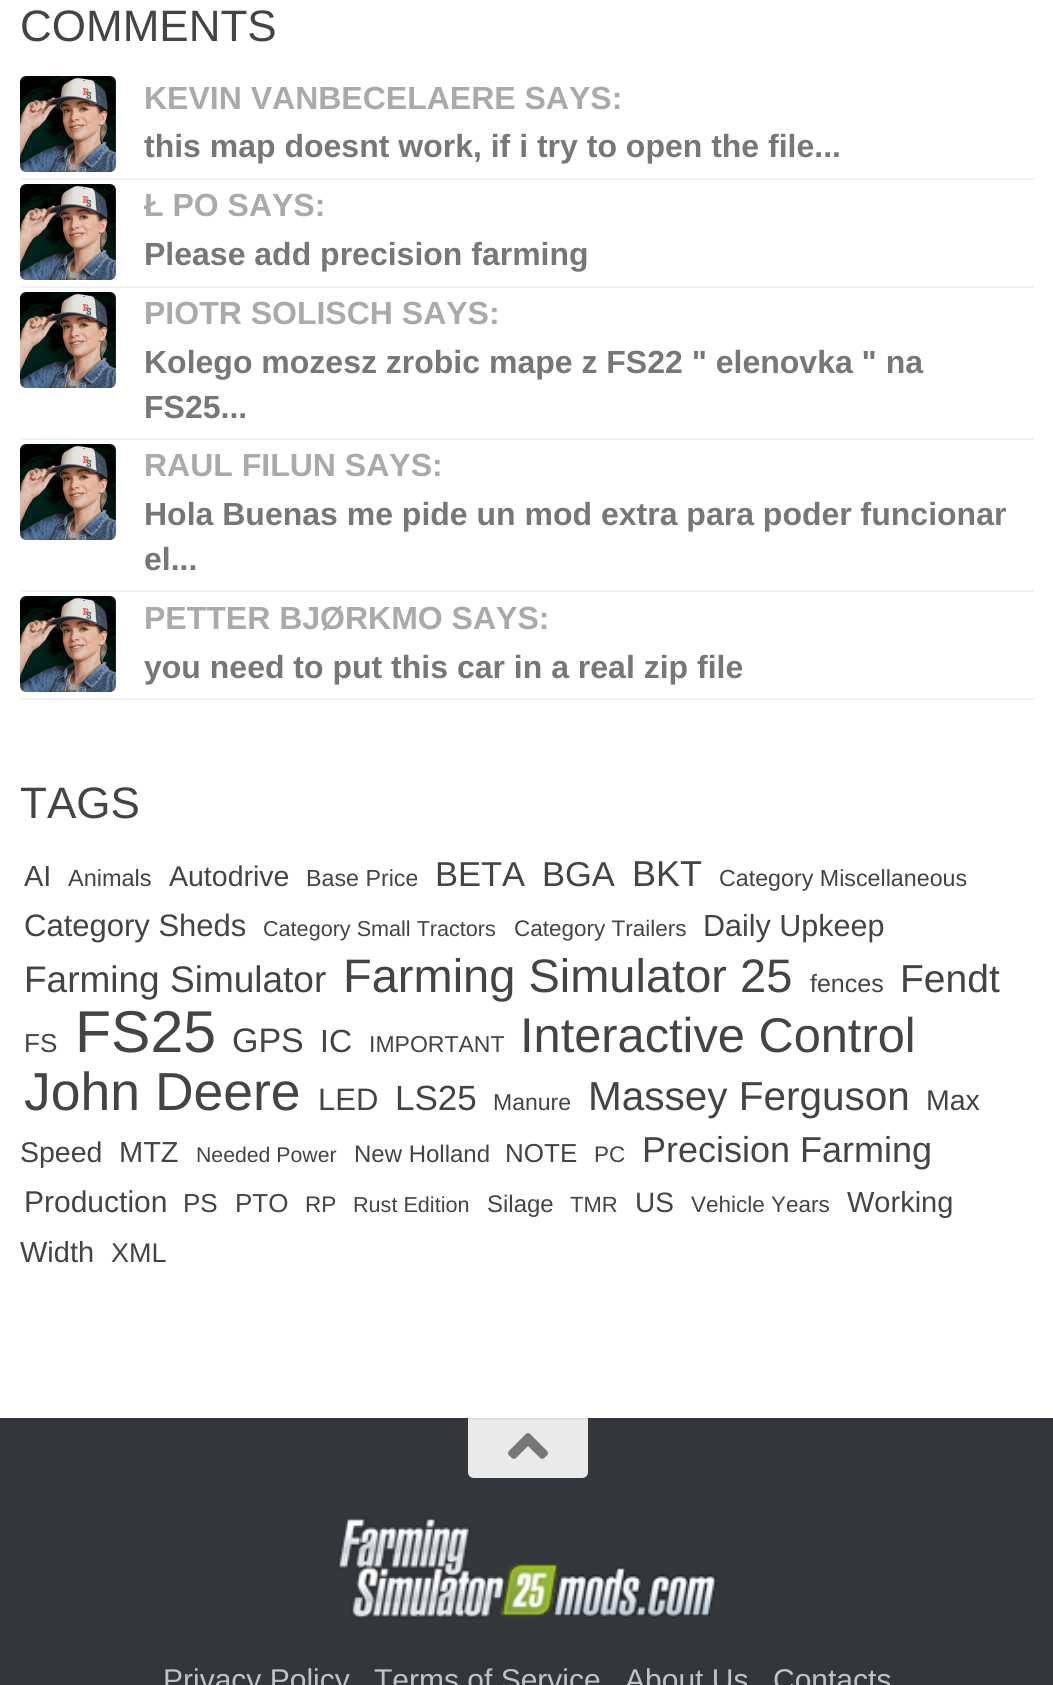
#include <cairo/cairo.h>
#include <math.h>
#include <stddef.h>

static cairo_t *cr;

static void use_color(int r, int g, int b) {
  cairo_set_source_rgb(cr, r / 255.0, g / 255.0, b / 255.0);
}

static void text(double x, double y, const char *s, const char *family, double size, int italic, int bold, int r, int g, int b) {
  cairo_select_font_face(cr, family, italic ? CAIRO_FONT_SLANT_ITALIC : CAIRO_FONT_SLANT_NORMAL,
    bold ? CAIRO_FONT_WEIGHT_BOLD : CAIRO_FONT_WEIGHT_NORMAL);
  cairo_set_font_size(cr, size);
  use_color(r, g, b);
  cairo_move_to(cr, x, y);
  cairo_show_text(cr, s);
}

static void box(double x, double y, double w, double h, int r, int g, int b) {
  use_color(r, g, b);
  cairo_rectangle(cr, x, y, w, h);
  cairo_fill(cr);
}

static void picture(const char *path, double x, double y, double w, double h) {
  cairo_surface_t *image = cairo_image_surface_create_from_png(path);
  cairo_save(cr);
  cairo_set_source_surface(cr, image, x, y);
  cairo_rectangle(cr, x, y, w, h);
  cairo_fill(cr);
  cairo_restore(cr);
  cairo_surface_destroy(image);
}

static void draw(void) {
  use_color(255, 255, 255);
  cairo_paint(cr);
  box(20, 178, 1014, 2, 242, 242, 242);
  picture("img_01.png", 20, 76, 96, 96);
  box(20, 286, 1014, 2, 242, 242, 242);
  picture("img_01.png", 20, 184, 96, 96);
  box(20, 438, 1014, 2, 242, 242, 242);
  picture("img_01.png", 20, 292, 96, 96);
  box(20, 590, 1014, 2, 242, 242, 242);
  picture("img_01.png", 20, 444, 96, 96);
  box(20, 698, 1014, 2, 242, 242, 242);
  picture("img_01.png", 20, 596, 96, 96);
  box(0, 1418, 1053, 267, 51, 54, 59);
  use_color(234, 234, 234);
  cairo_new_path(cr);
  cairo_move_to(cr, 468, 1418);
  cairo_line_to(cr, 588, 1418);
  cairo_line_to(cr, 588, 1472);
  cairo_curve_to(cr, 588, 1475.5, 585.5, 1478, 582, 1478);
  cairo_line_to(cr, 474, 1478);
  cairo_curve_to(cr, 470.5, 1478, 468, 1475.5, 468, 1472);
  cairo_close_path(cr);
  cairo_fill(cr);
  box(468, 1418, 120, 2, 222, 222, 222);
  picture("img_02.png", 508, 1433, 40, 26);
  picture("img_03.png", 338, 1518, 378, 100);
  text(20, 41, "COMMENTS", "Liberation Sans", 44, 0, 0, 68, 68, 68);
  text(144, 109, "KEVIN VANBECELAERE SAYS:", "Liberation Sans", 32, 0, 1, 170, 170, 170);
  text(144, 157, "this map doesnt work, if i try to open the file...", "Liberation Sans", 32, 0, 1, 119, 119, 119);
  text(144, 216, "Ł PO SAYS:", "Liberation Sans", 32, 0, 1, 170, 170, 170);
  text(144, 265, "Please add precision farming", "Liberation Sans", 32, 0, 1, 119, 119, 119);
  text(144, 324, "PIOTR SOLISCH SAYS:", "Liberation Sans", 32, 0, 1, 170, 170, 170);
  text(144, 373, "Kolego mozesz zrobic mape z FS22 \" elenovka \" na", "Liberation Sans", 32, 0, 1, 119, 119, 119);
  text(144, 418, "FS25...", "Liberation Sans", 32, 0, 1, 119, 119, 119);
  text(144, 476, "RAUL FILUN SAYS:", "Liberation Sans", 32, 0, 1, 170, 170, 170);
  text(144, 525, "Hola Buenas me pide un mod extra para poder funcionar", "Liberation Sans", 32, 0, 1, 119, 119, 119);
  text(144, 570, "el...", "Liberation Sans", 32, 0, 1, 119, 119, 119);
  text(144, 629, "PETTER BJØRKMO SAYS:", "Liberation Sans", 32, 0, 1, 170, 170, 170);
  text(144, 678, "you need to put this car in a real zip file", "Liberation Sans", 32, 0, 1, 119, 119, 119);
  text(20, 818, "TAGS", "Liberation Sans", 44, 0, 0, 68, 68, 68);
  text(24, 886, "AI", "Liberation Sans", 29, 0, 0, 68, 68, 68);
  text(68, 886, "Animals", "Liberation Sans", 23.5, 0, 0, 68, 68, 68);
  text(169, 886, "Autodrive", "Liberation Sans", 28.5, 0, 0, 68, 68, 68);
  text(306, 886, "Base Price", "Liberation Sans", 23.25, 0, 0, 68, 68, 68);
  text(435, 886, "BETA", "Liberation Sans", 34.5, 0, 0, 68, 68, 68);
  text(542, 886, "BGA", "Liberation Sans", 34.5, 0, 0, 68, 68, 68);
  text(632, 886, "BKT", "Liberation Sans", 36, 0, 0, 68, 68, 68);
  text(719, 886, "Category Miscellaneous", "Liberation Sans", 23.25, 0, 0, 68, 68, 68);
  text(24, 936, "Category Sheds", "Liberation Sans", 31, 0, 0, 68, 68, 68);
  text(263, 936, "Category Small Tractors", "Liberation Sans", 21.6, 0, 0, 68, 68, 68);
  text(514, 936, "Category Trailers", "Liberation Sans", 22.5, 0, 0, 68, 68, 68);
  text(703, 936, "Daily Upkeep", "Liberation Sans", 30.5, 0, 0, 68, 68, 68);
  text(24, 992, "Farming Simulator", "Liberation Sans", 37, 0, 0, 68, 68, 68);
  text(343, 992, "Farming Simulator 25", "Liberation Sans", 47, 0, 0, 68, 68, 68);
  text(810, 992, "fences", "Liberation Sans", 25, 0, 0, 68, 68, 68);
  text(900, 992, "Fendt", "Liberation Sans", 39, 0, 0, 68, 68, 68);
  text(24, 1052, "FS", "Liberation Sans", 26, 0, 0, 68, 68, 68);
  text(75, 1052, "FS25", "Liberation Sans", 59, 0, 0, 68, 68, 68);
  text(232, 1052, "GPS", "Liberation Sans", 34, 0, 0, 68, 68, 68);
  text(320, 1052, "IC", "Liberation Sans", 32, 0, 0, 68, 68, 68);
  text(369, 1052, "IMPORTANT", "Liberation Sans", 23, 0, 0, 68, 68, 68);
  text(520, 1052, "Interactive Control", "Liberation Sans", 48.75, 0, 0, 68, 68, 68);
  text(24, 1110, "John Deere", "Liberation Sans", 53.5, 0, 0, 68, 68, 68);
  text(318, 1110, "LED", "Liberation Sans", 31, 0, 0, 68, 68, 68);
  text(395, 1110, "LS25", "Liberation Sans", 35, 0, 0, 68, 68, 68);
  text(493, 1110, "Manure", "Liberation Sans", 23, 0, 0, 68, 68, 68);
  text(588, 1110, "Massey Ferguson", "Liberation Sans", 40.5, 0, 0, 68, 68, 68);
  text(926, 1110, "Max", "Liberation Sans", 28.5, 0, 0, 68, 68, 68);
  text(20, 1162, "Speed", "Liberation Sans", 28.5, 0, 0, 68, 68, 68);
  text(119, 1162, "MTZ", "Liberation Sans", 29, 0, 0, 68, 68, 68);
  text(196, 1162, "Needed Power", "Liberation Sans", 21.25, 0, 0, 68, 68, 68);
  text(354, 1162, "New Holland", "Liberation Sans", 24, 0, 0, 68, 68, 68);
  text(505, 1162, "NOTE", "Liberation Sans", 26, 0, 0, 68, 68, 68);
  text(594, 1162, "PC", "Liberation Sans", 22.5, 0, 0, 68, 68, 68);
  text(642, 1162, "Precision Farming", "Liberation Sans", 36, 0, 0, 68, 68, 68);
  text(24, 1212, "Production", "Liberation Sans", 30, 0, 0, 68, 68, 68);
  text(183, 1212, "PS", "Liberation Sans", 26, 0, 0, 68, 68, 68);
  text(235, 1212, "PTO", "Liberation Sans", 26, 0, 0, 68, 68, 68);
  text(305, 1212, "RP", "Liberation Sans", 22.5, 0, 0, 68, 68, 68);
  text(353, 1212, "Rust Edition", "Liberation Sans", 21.6, 0, 0, 68, 68, 68);
  text(487, 1212, "Silage", "Liberation Sans", 24, 0, 0, 68, 68, 68);
  text(570, 1212, "TMR", "Liberation Sans", 22, 0, 0, 68, 68, 68);
  text(635, 1212, "US", "Liberation Sans", 28, 0, 0, 68, 68, 68);
  text(691, 1212, "Vehicle Years", "Liberation Sans", 22.5, 0, 0, 68, 68, 68);
  text(847, 1212, "Working", "Liberation Sans", 29, 0, 0, 68, 68, 68);
  text(20, 1262, "Width", "Liberation Sans", 29, 0, 0, 68, 68, 68);
  text(111, 1262, "XML", "Liberation Sans", 27, 0, 0, 68, 68, 68);
  text(163, 1690, "Privacy Policy", "Liberation Sans", 30, 0, 0, 194, 195, 196);
  text(374, 1690, "Terms of Service", "Liberation Sans", 30, 0, 0, 194, 195, 196);
  text(625, 1690, "About Us", "Liberation Sans", 30, 0, 0, 194, 195, 196);
  text(773, 1690, "Contacts", "Liberation Sans", 30, 0, 0, 194, 195, 196);
}

int main(void) {
  cairo_surface_t *surface = cairo_image_surface_create(CAIRO_FORMAT_RGB24, 1053, 1685);
  cr = cairo_create(surface);
  cairo_font_options_t *options = cairo_font_options_create();
  cairo_font_options_set_hint_metrics(options, CAIRO_HINT_METRICS_OFF);
  cairo_font_options_set_hint_style(options, CAIRO_HINT_STYLE_NONE);
  cairo_set_font_options(cr, options);
  cairo_set_miter_limit(cr, 4);
  draw();
  cairo_surface_write_to_png(surface, "out.png");
  cairo_font_options_destroy(options);
  cairo_destroy(cr);
  cairo_surface_destroy(surface);
  return 0;
}
